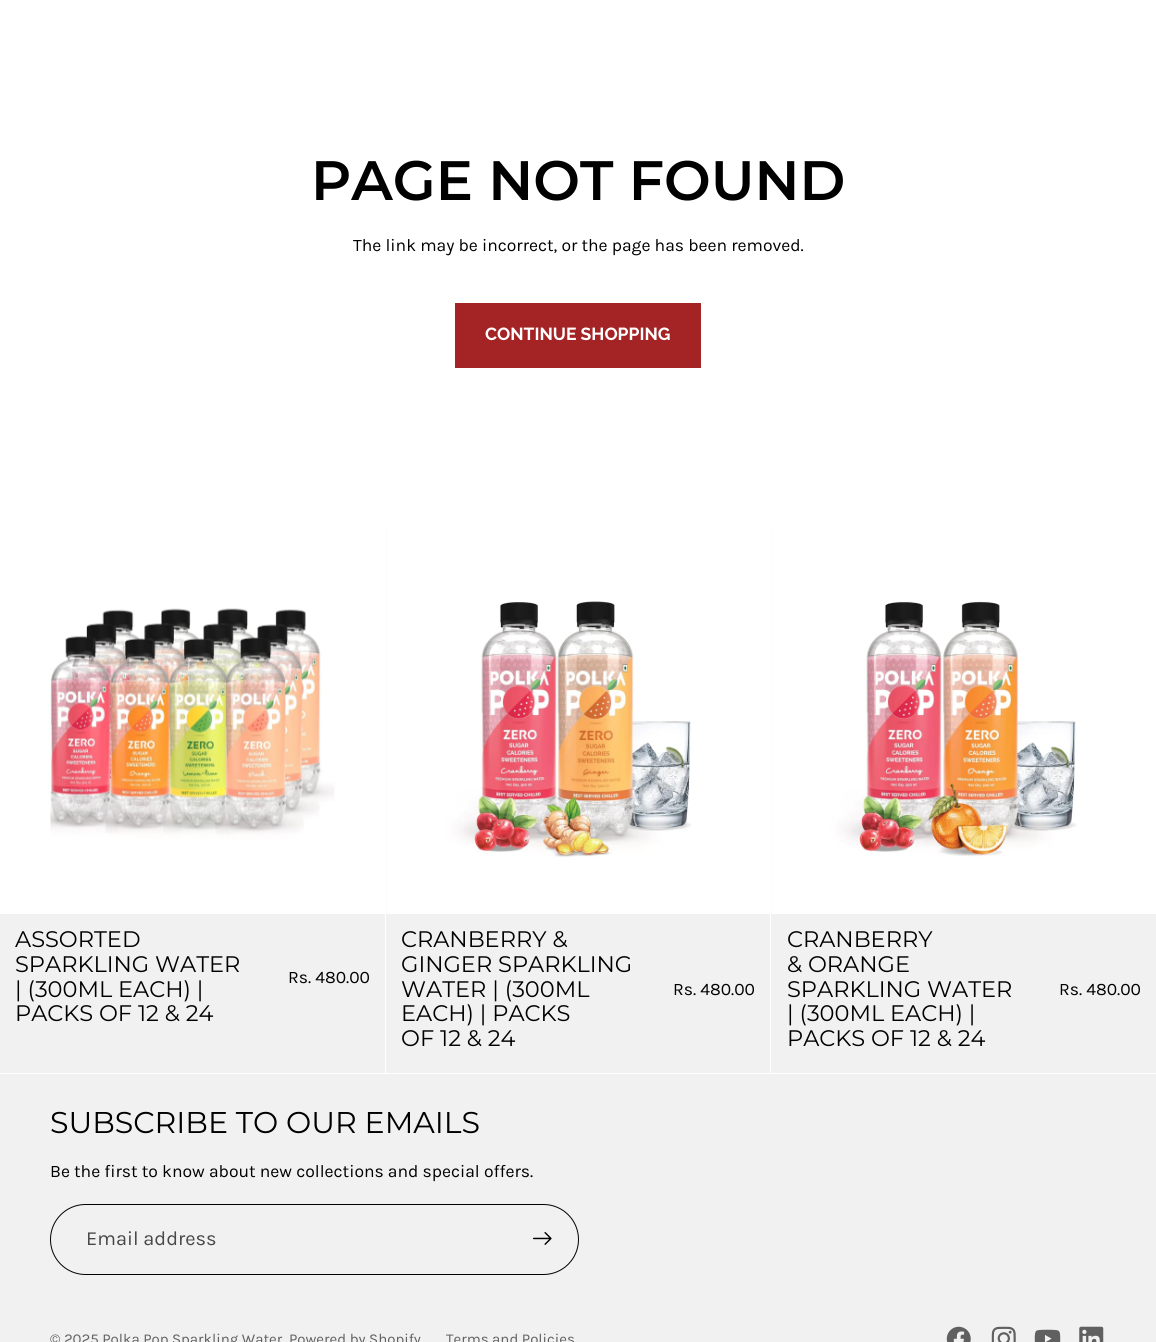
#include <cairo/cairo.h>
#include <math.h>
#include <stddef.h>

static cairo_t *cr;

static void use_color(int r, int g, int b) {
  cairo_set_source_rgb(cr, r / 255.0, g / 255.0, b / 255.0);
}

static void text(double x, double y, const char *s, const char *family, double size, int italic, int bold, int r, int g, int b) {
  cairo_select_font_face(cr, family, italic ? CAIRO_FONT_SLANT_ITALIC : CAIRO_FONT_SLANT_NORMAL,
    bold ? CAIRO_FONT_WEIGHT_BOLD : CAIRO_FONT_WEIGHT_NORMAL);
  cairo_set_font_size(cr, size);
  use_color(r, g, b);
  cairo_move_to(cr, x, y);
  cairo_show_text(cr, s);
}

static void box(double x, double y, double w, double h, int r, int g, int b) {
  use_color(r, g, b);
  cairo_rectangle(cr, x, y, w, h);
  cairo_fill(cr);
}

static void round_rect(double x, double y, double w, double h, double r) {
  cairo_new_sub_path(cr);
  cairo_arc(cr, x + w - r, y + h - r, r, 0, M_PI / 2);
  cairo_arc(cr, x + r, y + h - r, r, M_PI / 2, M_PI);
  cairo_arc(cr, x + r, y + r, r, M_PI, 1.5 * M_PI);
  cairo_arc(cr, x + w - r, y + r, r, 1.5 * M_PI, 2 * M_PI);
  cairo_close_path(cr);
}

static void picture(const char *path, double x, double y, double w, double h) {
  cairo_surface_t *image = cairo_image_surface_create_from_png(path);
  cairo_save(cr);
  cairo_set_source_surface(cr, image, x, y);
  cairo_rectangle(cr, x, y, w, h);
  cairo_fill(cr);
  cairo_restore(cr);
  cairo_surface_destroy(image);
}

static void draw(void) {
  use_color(255, 255, 255);
  cairo_paint(cr);
  box(455, 303, 246, 65, 164, 35, 37);
  box(0, 914, 385, 159, 241, 241, 241);
  picture("img_01.png", 0, 529, 385, 385);
  box(386, 529, 384, 544, 241, 241, 241);
  picture("img_02.png", 386, 529, 384, 385);
  box(771, 529, 385, 544, 241, 241, 241);
  picture("img_03.png", 771, 529, 385, 385);
  box(0, 1074, 1156, 268, 241, 241, 241);
  round_rect(50.5, 1204.5, 528, 70, 35);
  use_color(0, 0, 0);
  cairo_set_line_width(cr, 1);
  cairo_stroke(cr);
  picture("img_04.png", 533, 1232, 19, 13);
  picture("img_05.png", 946, 1326, 25, 16);
  picture("img_06.png", 991, 1326, 25, 16);
  picture("img_07.png", 1034, 1329, 27, 13);
  picture("img_08.png", 1079, 1326, 25, 16);
  text(311, 200, "PAGE NOT FOUND", "Montserrat SemiBold", 55.5, 0, 0, 0, 0, 0);
  text(353, 251, "The link may be incorrect, or the page has been removed.", "Karla", 17.5, 0, 0, 0, 0, 0);
  text(485, 340, "CONTINUE SHOPPING", "Raleway", 17.5, 0, 1, 255, 255, 255);
  text(15, 947, "ASSORTED", "Montserrat", 22.5, 0, 0, 0, 0, 0);
  text(15, 972, "SPARKLING WATER", "Montserrat", 22.5, 0, 0, 0, 0, 0);
  text(15, 997, "| (300ML EACH) |", "Montserrat", 22.5, 0, 0, 0, 0, 0);
  text(15, 1021, "PACKS OF 12 & 24", "Montserrat", 22.5, 0, 0, 0, 0, 0);
  text(288, 983, "Rs. 480.00", "Karla", 17.5, 0, 0, 0, 0, 0);
  text(401, 947, "CRANBERRY &", "Montserrat", 22.5, 0, 0, 0, 0, 0);
  text(401, 972, "GINGER SPARKLING", "Montserrat", 22.5, 0, 0, 0, 0, 0);
  text(401, 997, "WATER | (300ML", "Montserrat", 22.5, 0, 0, 0, 0, 0);
  text(401, 1021, "EACH) | PACKS", "Montserrat", 22.5, 0, 0, 0, 0, 0);
  text(401, 1046, "OF 12 & 24", "Montserrat", 22.5, 0, 0, 0, 0, 0);
  text(673, 995, "Rs. 480.00", "Karla", 17.5, 0, 0, 0, 0, 0);
  text(787, 947, "CRANBERRY", "Montserrat", 22.5, 0, 0, 0, 0, 0);
  text(787, 972, "& ORANGE", "Montserrat", 22.5, 0, 0, 0, 0, 0);
  text(787, 997, "SPARKLING WATER", "Montserrat", 22.5, 0, 0, 0, 0, 0);
  text(787, 1021, "| (300ML EACH) |", "Montserrat", 22.5, 0, 0, 0, 0, 0);
  text(787, 1046, "PACKS OF 12 & 24", "Montserrat", 22.5, 0, 0, 0, 0, 0);
  text(1059, 995, "Rs. 480.00", "Karla", 17.5, 0, 0, 0, 0, 0);
  text(50, 1133, "SUBSCRIBE TO OUR EMAILS", "Montserrat", 30, 0, 0, 0, 0, 0);
  text(50, 1177, "Be the first to know about new collections and special offers.", "Karla", 17.5, 0, 0, 0, 0, 0);
  text(86, 1245, "Email address", "Karla", 20, 0, 0, 72, 72, 72);
  text(50, 1344, "© 2025 Polka Pop Sparkling Water", "Karla", 15, 0, 0, 96, 96, 96);
  text(289, 1344, "Powered by Shopify", "Karla", 15, 0, 0, 96, 96, 96);
  text(446, 1344, "Terms and Policies", "Karla", 15, 0, 0, 96, 96, 96);
}

int main(void) {
  cairo_surface_t *surface = cairo_image_surface_create(CAIRO_FORMAT_RGB24, 1156, 1342);
  cr = cairo_create(surface);
  cairo_font_options_t *options = cairo_font_options_create();
  cairo_font_options_set_hint_metrics(options, CAIRO_HINT_METRICS_OFF);
  cairo_font_options_set_hint_style(options, CAIRO_HINT_STYLE_NONE);
  cairo_set_font_options(cr, options);
  cairo_set_miter_limit(cr, 4);
  draw();
  cairo_surface_write_to_png(surface, "out.png");
  cairo_font_options_destroy(options);
  cairo_destroy(cr);
  cairo_surface_destroy(surface);
  return 0;
}
